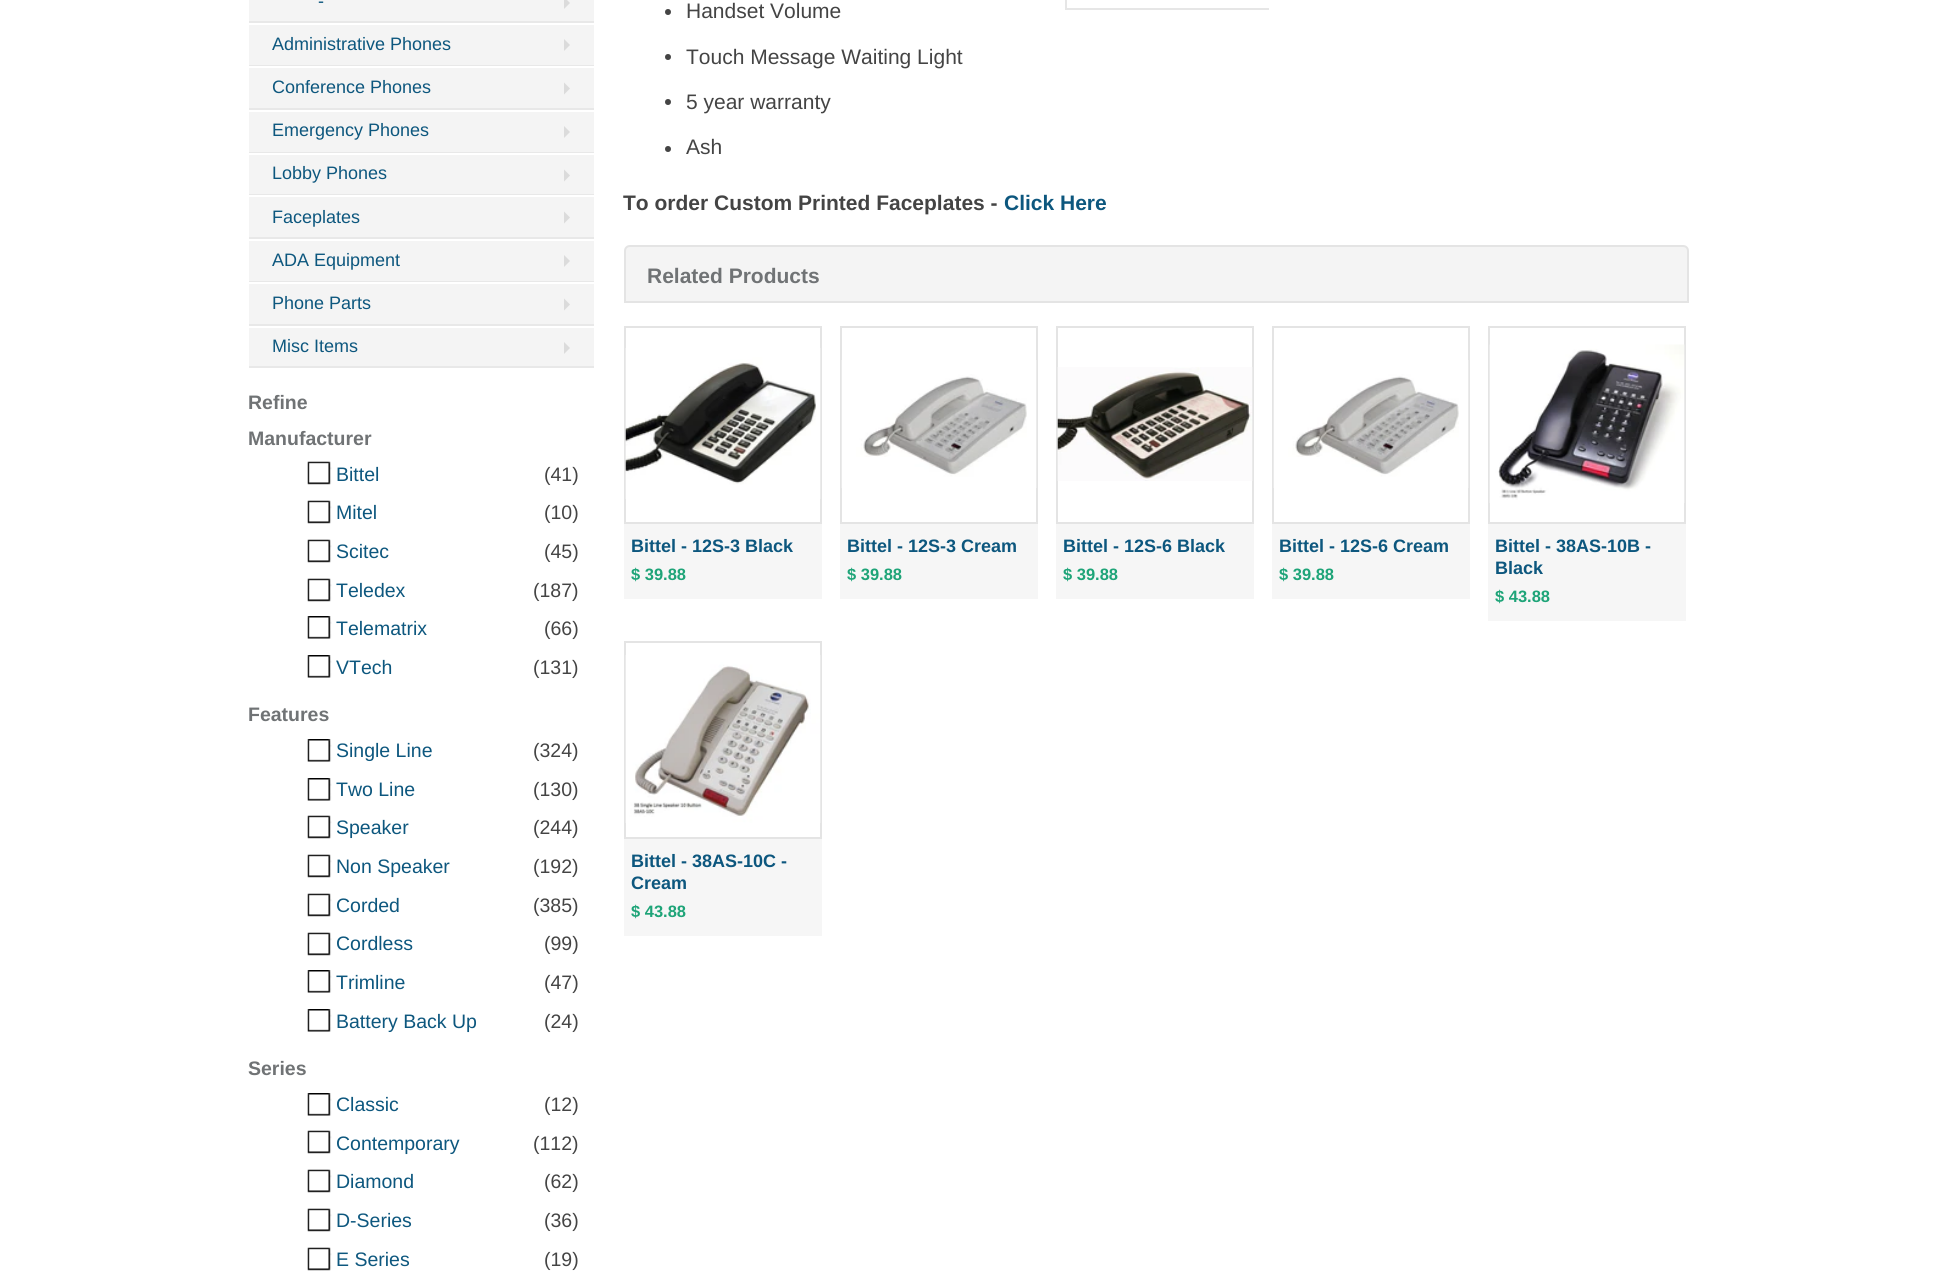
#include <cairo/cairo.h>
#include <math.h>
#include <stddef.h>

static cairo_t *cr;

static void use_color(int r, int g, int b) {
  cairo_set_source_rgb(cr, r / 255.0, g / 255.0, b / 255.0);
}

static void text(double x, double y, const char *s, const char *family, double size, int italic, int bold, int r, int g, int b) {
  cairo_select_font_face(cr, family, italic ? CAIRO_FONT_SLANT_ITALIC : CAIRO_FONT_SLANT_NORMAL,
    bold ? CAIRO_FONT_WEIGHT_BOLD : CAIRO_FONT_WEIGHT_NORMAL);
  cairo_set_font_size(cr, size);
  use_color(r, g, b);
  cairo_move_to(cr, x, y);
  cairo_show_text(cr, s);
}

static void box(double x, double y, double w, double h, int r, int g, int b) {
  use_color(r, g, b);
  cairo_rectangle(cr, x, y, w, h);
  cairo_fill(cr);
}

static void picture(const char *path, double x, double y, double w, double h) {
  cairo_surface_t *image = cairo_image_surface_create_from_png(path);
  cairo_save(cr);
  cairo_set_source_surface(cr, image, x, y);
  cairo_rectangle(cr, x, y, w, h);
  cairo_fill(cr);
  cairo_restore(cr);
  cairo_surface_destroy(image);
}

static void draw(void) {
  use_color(255, 255, 255);
  cairo_paint(cr);
  box(249, 0, 345, 21, 244, 244, 244);
  box(249, 21, 345, 2, 232, 232, 232);
  use_color(219, 219, 219);
  cairo_new_path(cr);
  cairo_move_to(cr, 564, 9);
  cairo_line_to(cr, 564, -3);
  cairo_line_to(cr, 570, 3);
  cairo_close_path(cr);
  cairo_fill(cr);
  box(249, 25, 345, 40, 244, 244, 244);
  box(249, 65, 345, 1, 232, 232, 232);
  use_color(219, 219, 219);
  cairo_new_path(cr);
  cairo_move_to(cr, 564, 51);
  cairo_line_to(cr, 564, 39);
  cairo_line_to(cr, 570, 45);
  cairo_close_path(cr);
  cairo_fill(cr);
  box(249, 68, 345, 40, 244, 244, 244);
  box(249, 108, 345, 2, 232, 232, 232);
  use_color(219, 219, 219);
  cairo_new_path(cr);
  cairo_move_to(cr, 564, 94.5);
  cairo_line_to(cr, 564, 82.5);
  cairo_line_to(cr, 570, 88.5);
  cairo_close_path(cr);
  cairo_fill(cr);
  box(249, 112, 345, 40, 244, 244, 244);
  box(249, 152, 345, 1, 232, 232, 232);
  use_color(219, 219, 219);
  cairo_new_path(cr);
  cairo_move_to(cr, 564, 138);
  cairo_line_to(cr, 564, 126);
  cairo_line_to(cr, 570, 132);
  cairo_close_path(cr);
  cairo_fill(cr);
  box(249, 155, 345, 39, 244, 244, 244);
  box(249, 194, 345, 1, 232, 232, 232);
  use_color(219, 219, 219);
  cairo_new_path(cr);
  cairo_move_to(cr, 564, 181.5);
  cairo_line_to(cr, 564, 169.5);
  cairo_line_to(cr, 570, 175.5);
  cairo_close_path(cr);
  cairo_fill(cr);
  box(249, 197, 345, 40, 244, 244, 244);
  box(249, 237, 345, 2, 232, 232, 232);
  use_color(219, 219, 219);
  cairo_new_path(cr);
  cairo_move_to(cr, 564, 223.5);
  cairo_line_to(cr, 564, 211.5);
  cairo_line_to(cr, 570, 217.5);
  cairo_close_path(cr);
  cairo_fill(cr);
  box(249, 241, 345, 40, 244, 244, 244);
  box(249, 281, 345, 1, 232, 232, 232);
  use_color(219, 219, 219);
  cairo_new_path(cr);
  cairo_move_to(cr, 564, 267);
  cairo_line_to(cr, 564, 255);
  cairo_line_to(cr, 570, 261);
  cairo_close_path(cr);
  cairo_fill(cr);
  box(249, 284, 345, 40, 244, 244, 244);
  box(249, 324, 345, 2, 232, 232, 232);
  use_color(219, 219, 219);
  cairo_new_path(cr);
  cairo_move_to(cr, 564, 310.5);
  cairo_line_to(cr, 564, 298.5);
  cairo_line_to(cr, 570, 304.5);
  cairo_close_path(cr);
  cairo_fill(cr);
  box(249, 328, 345, 38, 244, 244, 244);
  box(249, 366, 345, 2, 232, 232, 232);
  use_color(219, 219, 219);
  cairo_new_path(cr);
  cairo_move_to(cr, 564, 354);
  cairo_line_to(cr, 564, 342);
  cairo_line_to(cr, 570, 348);
  cairo_close_path(cr);
  cairo_fill(cr);
  use_color(68, 68, 68);
  cairo_arc(cr, 668, 12, 3, 0, 2 * M_PI);
  cairo_fill(cr);
  cairo_arc(cr, 668, 57, 3, 0, 2 * M_PI);
  cairo_fill(cr);
  cairo_arc(cr, 668, 102, 3, 0, 2 * M_PI);
  cairo_fill(cr);
  cairo_arc(cr, 668, 149, 3, 0, 2 * M_PI);
  cairo_fill(cr);
  box(1065, 8, 204, 2, 230, 230, 230);
  box(1065, 0, 2, 9, 230, 230, 230);
  use_color(244, 244, 244);
  cairo_new_path(cr);
  cairo_move_to(cr, 630, 246);
  cairo_line_to(cr, 1683, 246);
  cairo_curve_to(cr, 1686, 246, 1688, 248, 1688, 251);
  cairo_line_to(cr, 1688, 302);
  cairo_line_to(cr, 625, 302);
  cairo_line_to(cr, 625, 251);
  cairo_curve_to(cr, 625, 248, 627, 246, 630, 246);
  cairo_close_path(cr);
  cairo_fill_preserve(cr);
  use_color(228, 228, 228);
  cairo_stroke(cr);
  cairo_rectangle(cr, 625, 327, 196, 196);
  cairo_stroke(cr);
  picture("img_01.png", 625, 348, 196, 151);
  box(624, 524, 198, 75, 246, 246, 246);
  cairo_rectangle(cr, 841, 327, 196, 196);
  use_color(228, 228, 228);
  cairo_stroke(cr);
  picture("img_02.png", 841, 360, 196, 128);
  box(840, 524, 198, 75, 246, 246, 246);
  cairo_rectangle(cr, 1057, 327, 196, 196);
  use_color(228, 228, 228);
  cairo_stroke(cr);
  picture("img_03.png", 1057, 367, 196, 114);
  box(1056, 524, 198, 75, 246, 246, 246);
  cairo_rectangle(cr, 1273, 327, 196, 196);
  use_color(228, 228, 228);
  cairo_stroke(cr);
  picture("img_04.png", 1273, 360, 196, 128);
  box(1272, 524, 198, 75, 246, 246, 246);
  cairo_rectangle(cr, 1489, 327, 196, 196);
  use_color(228, 228, 228);
  cairo_stroke(cr);
  picture("img_05.png", 1489, 344, 196, 159);
  box(1488, 524, 198, 97, 246, 246, 246);
  cairo_rectangle(cr, 625, 642, 196, 196);
  use_color(228, 228, 228);
  cairo_stroke(cr);
  picture("img_06.png", 625, 655, 196, 168);
  box(624, 839, 198, 97, 246, 246, 246);
  picture("img_07.png", 307, 461, 25, 24);
  picture("img_07.png", 307, 500, 25, 24);
  picture("img_07.png", 307, 539, 25, 24);
  picture("img_07.png", 307, 578, 25, 24);
  picture("img_08.png", 307, 616, 25, 23);
  picture("img_08.png", 307, 655, 25, 23);
  picture("img_08.png", 307, 739, 25, 23);
  picture("img_08.png", 307, 778, 25, 23);
  picture("img_07.png", 307, 815, 25, 24);
  picture("img_07.png", 307, 854, 25, 24);
  picture("img_07.png", 307, 893, 25, 24);
  picture("img_07.png", 307, 932, 25, 24);
  picture("img_08.png", 307, 970, 25, 23);
  picture("img_08.png", 307, 1009, 25, 23);
  picture("img_08.png", 307, 1093, 25, 23);
  picture("img_07.png", 307, 1130, 25, 24);
  picture("img_07.png", 307, 1169, 25, 24);
  picture("img_07.png", 307, 1208, 25, 24);
  picture("img_07.png", 307, 1247, 25, 24);
  text(318, 7, "-", "Liberation Sans", 18, 0, 0, 13, 87, 126);
  text(272, 50, "Administrative Phones", "Liberation Sans", 18, 0, 0, 13, 87, 126);
  text(272, 93, "Conference Phones", "Liberation Sans", 18, 0, 0, 13, 87, 126);
  text(272, 136, "Emergency Phones", "Liberation Sans", 18, 0, 0, 13, 87, 126);
  text(272, 179, "Lobby Phones", "Liberation Sans", 18, 0, 0, 13, 87, 126);
  text(272, 223, "Faceplates", "Liberation Sans", 18, 0, 0, 13, 87, 126);
  text(272, 266, "ADA Equipment", "Liberation Sans", 18, 0, 0, 13, 87, 126);
  text(272, 309, "Phone Parts", "Liberation Sans", 18, 0, 0, 13, 87, 126);
  text(272, 352, "Misc Items", "Liberation Sans", 18, 0, 0, 13, 87, 126);
  text(686, 18, "Handset Volume", "Liberation Sans", 21, 0, 0, 68, 68, 68);
  text(686, 64, "Touch Message Waiting Light", "Liberation Sans", 21, 0, 0, 68, 68, 68);
  text(686, 109, "5 year warranty", "Liberation Sans", 21, 0, 0, 68, 68, 68);
  text(686, 154, "Ash", "Liberation Sans", 21, 0, 0, 68, 68, 68);
  text(623, 210, "To order Custom Printed Faceplates -", "Liberation Sans", 21, 0, 1, 68, 68, 68);
  text(1004, 210, "Click Here", "Liberation Sans", 21, 0, 1, 13, 87, 126);
  text(647, 283, "Related Products", "Liberation Sans", 21, 0, 1, 112, 115, 117);
  text(631, 552, "Bittel - 12S-3 Black", "Liberation Sans", 18, 0, 1, 13, 87, 126);
  text(631, 580, "$ 39.88", "Liberation Sans", 16.5, 0, 1, 30, 164, 120);
  text(847, 552, "Bittel - 12S-3 Cream", "Liberation Sans", 18, 0, 1, 13, 87, 126);
  text(847, 580, "$ 39.88", "Liberation Sans", 16.5, 0, 1, 30, 164, 120);
  text(1063, 552, "Bittel - 12S-6 Black", "Liberation Sans", 18, 0, 1, 13, 87, 126);
  text(1063, 580, "$ 39.88", "Liberation Sans", 16.5, 0, 1, 30, 164, 120);
  text(1279, 552, "Bittel - 12S-6 Cream", "Liberation Sans", 18, 0, 1, 13, 87, 126);
  text(1279, 580, "$ 39.88", "Liberation Sans", 16.5, 0, 1, 30, 164, 120);
  text(1495, 552, "Bittel - 38AS-10B -", "Liberation Sans", 18, 0, 1, 13, 87, 126);
  text(1495, 574, "Black", "Liberation Sans", 18, 0, 1, 13, 87, 126);
  text(1495, 602, "$ 43.88", "Liberation Sans", 16.5, 0, 1, 30, 164, 120);
  text(631, 867, "Bittel - 38AS-10C -", "Liberation Sans", 18, 0, 1, 13, 87, 126);
  text(631, 889, "Cream", "Liberation Sans", 18, 0, 1, 13, 87, 126);
  text(631, 917, "$ 43.88", "Liberation Sans", 16.5, 0, 1, 30, 164, 120);
  text(248, 409, "Refine", "Liberation Sans", 19.5, 0, 1, 112, 115, 117);
  text(248, 445, "Manufacturer", "Liberation Sans", 19.5, 0, 1, 112, 115, 117);
  text(336, 481, "Bittel", "Liberation Sans", 19.5, 0, 0, 13, 87, 126);
  text(544, 481, "(41)", "Liberation Sans", 19.5, 0, 0, 68, 68, 68);
  text(336, 519, "Mitel", "Liberation Sans", 19.5, 0, 0, 13, 87, 126);
  text(544, 519, "(10)", "Liberation Sans", 19.5, 0, 0, 68, 68, 68);
  text(336, 558, "Scitec", "Liberation Sans", 19.5, 0, 0, 13, 87, 126);
  text(544, 558, "(45)", "Liberation Sans", 19.5, 0, 0, 68, 68, 68);
  text(336, 597, "Teledex", "Liberation Sans", 19.5, 0, 0, 13, 87, 126);
  text(533, 597, "(187)", "Liberation Sans", 19.5, 0, 0, 68, 68, 68);
  text(336, 635, "Telematrix", "Liberation Sans", 19.5, 0, 0, 13, 87, 126);
  text(544, 635, "(66)", "Liberation Sans", 19.5, 0, 0, 68, 68, 68);
  text(336, 674, "VTech", "Liberation Sans", 19.5, 0, 0, 13, 87, 126);
  text(533, 674, "(131)", "Liberation Sans", 19.5, 0, 0, 68, 68, 68);
  text(248, 721, "Features", "Liberation Sans", 19.5, 0, 1, 112, 115, 117);
  text(336, 757, "Single Line", "Liberation Sans", 19.5, 0, 0, 13, 87, 126);
  text(533, 757, "(324)", "Liberation Sans", 19.5, 0, 0, 68, 68, 68);
  text(336, 796, "Two Line", "Liberation Sans", 19.5, 0, 0, 13, 87, 126);
  text(533, 796, "(130)", "Liberation Sans", 19.5, 0, 0, 68, 68, 68);
  text(336, 834, "Speaker", "Liberation Sans", 19.5, 0, 0, 13, 87, 126);
  text(533, 834, "(244)", "Liberation Sans", 19.5, 0, 0, 68, 68, 68);
  text(336, 873, "Non Speaker", "Liberation Sans", 19.5, 0, 0, 13, 87, 126);
  text(533, 873, "(192)", "Liberation Sans", 19.5, 0, 0, 68, 68, 68);
  text(336, 912, "Corded", "Liberation Sans", 19.5, 0, 0, 13, 87, 126);
  text(533, 912, "(385)", "Liberation Sans", 19.5, 0, 0, 68, 68, 68);
  text(336, 950, "Cordless", "Liberation Sans", 19.5, 0, 0, 13, 87, 126);
  text(544, 950, "(99)", "Liberation Sans", 19.5, 0, 0, 68, 68, 68);
  text(336, 989, "Trimline", "Liberation Sans", 19.5, 0, 0, 13, 87, 126);
  text(544, 989, "(47)", "Liberation Sans", 19.5, 0, 0, 68, 68, 68);
  text(336, 1028, "Battery Back Up", "Liberation Sans", 19.5, 0, 0, 13, 87, 126);
  text(544, 1028, "(24)", "Liberation Sans", 19.5, 0, 0, 68, 68, 68);
  text(248, 1075, "Series", "Liberation Sans", 19.5, 0, 1, 112, 115, 117);
  text(336, 1111, "Classic", "Liberation Sans", 19.5, 0, 0, 13, 87, 126);
  text(544, 1111, "(12)", "Liberation Sans", 19.5, 0, 0, 68, 68, 68);
  text(336, 1150, "Contemporary", "Liberation Sans", 19.5, 0, 0, 13, 87, 126);
  text(533, 1150, "(112)", "Liberation Sans", 19.5, 0, 0, 68, 68, 68);
  text(336, 1188, "Diamond", "Liberation Sans", 19.5, 0, 0, 13, 87, 126);
  text(544, 1188, "(62)", "Liberation Sans", 19.5, 0, 0, 68, 68, 68);
  text(336, 1227, "D-Series", "Liberation Sans", 19.5, 0, 0, 13, 87, 126);
  text(544, 1227, "(36)", "Liberation Sans", 19.5, 0, 0, 68, 68, 68);
  text(336, 1266, "E Series", "Liberation Sans", 19.5, 0, 0, 13, 87, 126);
  text(544, 1266, "(19)", "Liberation Sans", 19.5, 0, 0, 68, 68, 68);
}

int main(void) {
  cairo_surface_t *surface = cairo_image_surface_create(CAIRO_FORMAT_RGB24, 1936, 1273);
  cr = cairo_create(surface);
  cairo_font_options_t *options = cairo_font_options_create();
  cairo_font_options_set_hint_metrics(options, CAIRO_HINT_METRICS_OFF);
  cairo_font_options_set_hint_style(options, CAIRO_HINT_STYLE_NONE);
  cairo_set_font_options(cr, options);
  cairo_set_miter_limit(cr, 4);
  draw();
  cairo_surface_write_to_png(surface, "out.png");
  cairo_font_options_destroy(options);
  cairo_destroy(cr);
  cairo_surface_destroy(surface);
  return 0;
}
